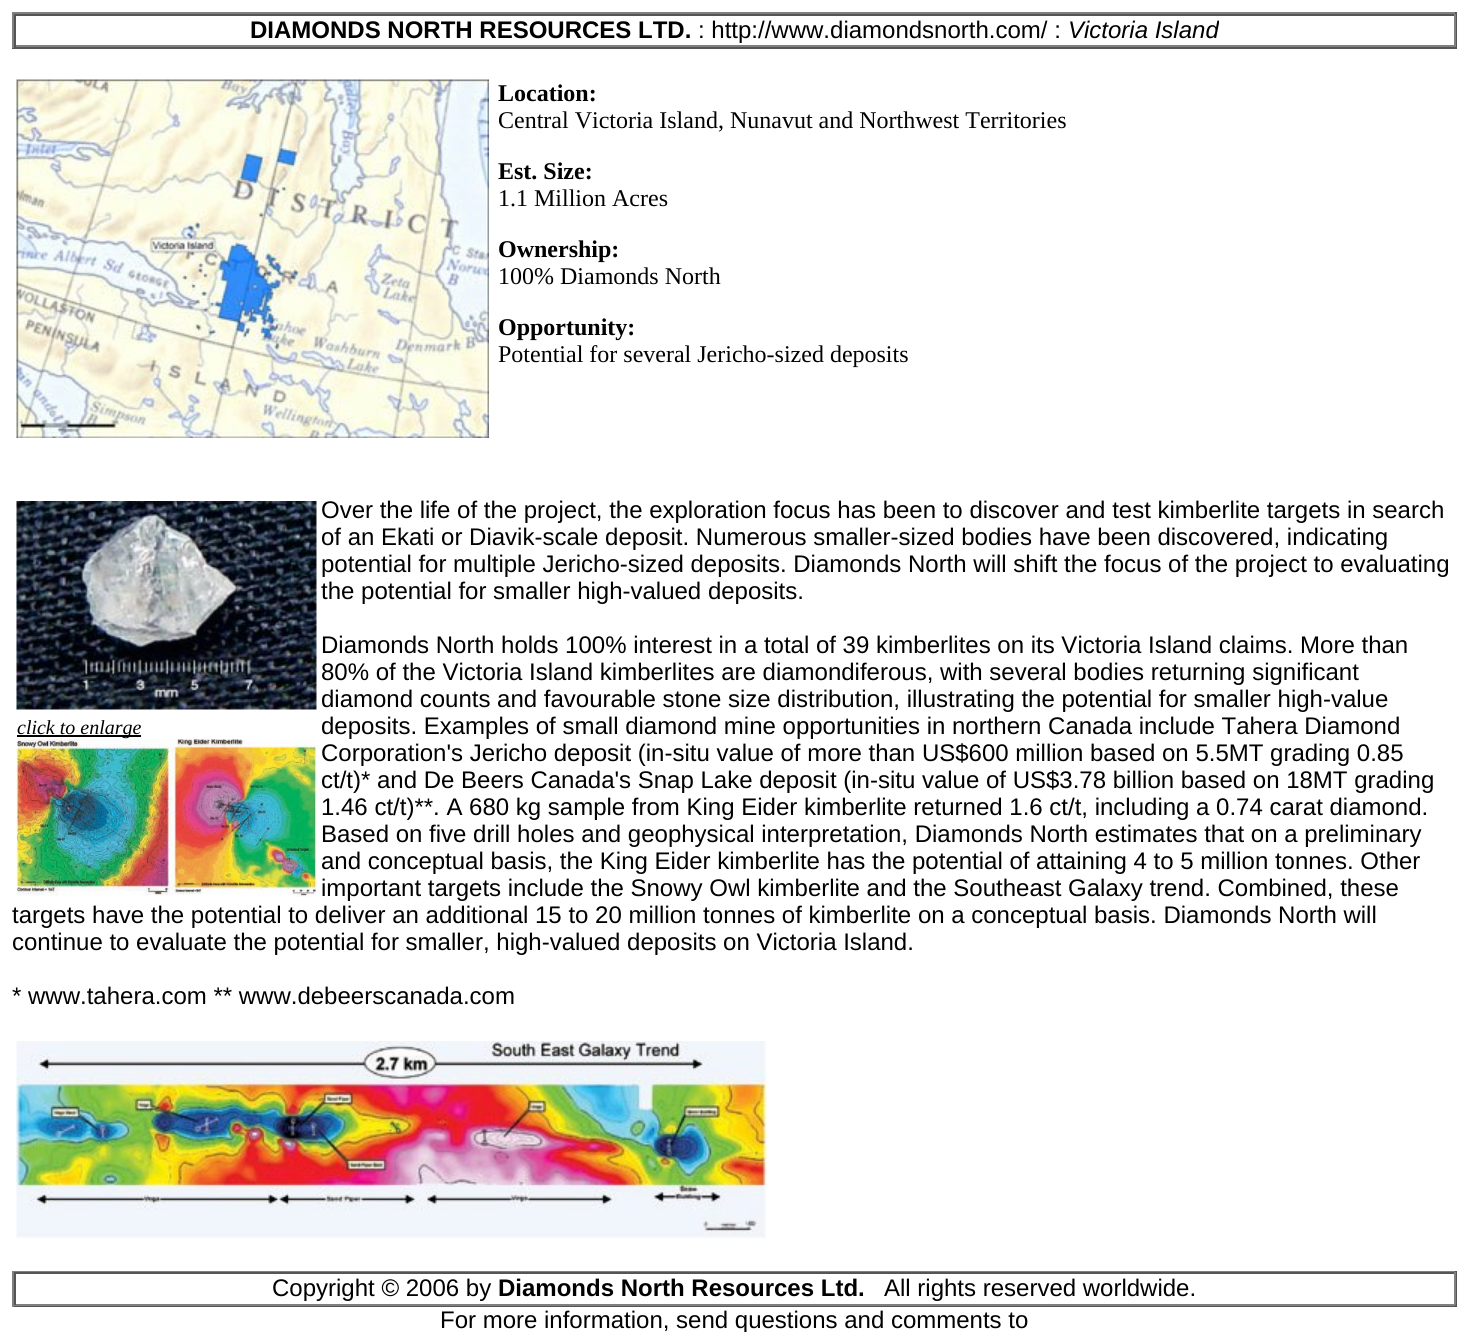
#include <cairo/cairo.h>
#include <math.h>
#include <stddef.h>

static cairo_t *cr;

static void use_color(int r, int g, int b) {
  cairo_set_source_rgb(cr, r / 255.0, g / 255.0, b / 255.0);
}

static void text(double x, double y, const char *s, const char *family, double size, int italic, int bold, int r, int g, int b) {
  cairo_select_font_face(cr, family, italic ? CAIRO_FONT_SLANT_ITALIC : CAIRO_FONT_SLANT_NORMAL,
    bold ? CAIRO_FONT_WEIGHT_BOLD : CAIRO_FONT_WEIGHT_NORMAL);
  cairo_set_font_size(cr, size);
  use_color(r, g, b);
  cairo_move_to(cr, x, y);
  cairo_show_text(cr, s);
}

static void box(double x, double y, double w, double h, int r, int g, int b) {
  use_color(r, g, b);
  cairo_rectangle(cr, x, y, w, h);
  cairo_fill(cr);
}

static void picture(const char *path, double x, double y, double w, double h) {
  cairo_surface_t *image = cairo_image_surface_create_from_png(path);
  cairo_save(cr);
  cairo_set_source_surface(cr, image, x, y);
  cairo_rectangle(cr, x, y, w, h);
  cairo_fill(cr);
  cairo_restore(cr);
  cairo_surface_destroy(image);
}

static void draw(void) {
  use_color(255, 255, 255);
  cairo_paint(cr);
  box(12, 12, 1445, 2, 128, 128, 128);
  box(1455, 12, 2, 36, 85, 85, 85);
  box(12, 47, 1445, 2, 85, 85, 85);
  box(12, 12, 2, 36, 128, 128, 128);
  box(14, 14, 1441, 2, 85, 85, 85);
  box(1454, 14, 2, 33, 128, 128, 128);
  box(14, 45, 1441, 2, 128, 128, 128);
  box(14, 14, 2, 33, 85, 85, 85);
  picture("img_01.png", 16, 79, 473, 359);
  picture("img_02.png", 16, 501, 301, 209);
  box(17, 735, 124, 2, 0, 0, 0);
  picture("img_03.png", 16, 739, 301, 158);
  picture("img_04.png", 16, 1041, 751, 198);
  box(12, 1271, 1445, 1, 128, 128, 128);
  box(1455, 1271, 2, 36, 85, 85, 85);
  box(12, 1305, 1445, 2, 85, 85, 85);
  box(12, 1271, 2, 36, 128, 128, 128);
  box(14, 1272, 1441, 2, 85, 85, 85);
  box(1454, 1272, 2, 33, 128, 128, 128);
  box(14, 1304, 1441, 2, 128, 128, 128);
  box(14, 1272, 2, 33, 85, 85, 85);
  text(250, 38, "DIAMONDS NORTH RESOURCES LTD.", "Liberation Sans", 24, 0, 1, 0, 0, 0);
  text(698, 38, ": http://www.diamondsnorth.com/ :", "Liberation Sans", 24, 0, 0, 0, 0, 0);
  text(1068, 38, "Victoria Island", "Liberation Sans", 24, 1, 0, 0, 0, 0);
  text(498, 101, "Location:", "Liberation Serif", 24, 0, 1, 0, 0, 0);
  text(498, 128, "Central Victoria Island, Nunavut and Northwest Territories", "Liberation Serif", 24, 0, 0, 0, 0, 0);
  text(498, 179, "Est. Size:", "Liberation Serif", 24, 0, 1, 0, 0, 0);
  text(498, 206, "1.1 Million Acres", "Liberation Serif", 24, 0, 0, 0, 0, 0);
  text(498, 257, "Ownership:", "Liberation Serif", 24, 0, 1, 0, 0, 0);
  text(498, 284, "100% Diamonds North", "Liberation Serif", 24, 0, 0, 0, 0, 0);
  text(498, 335, "Opportunity:", "Liberation Serif", 24, 0, 1, 0, 0, 0);
  text(498, 362, "Potential for several Jericho-sized deposits", "Liberation Serif", 24, 0, 0, 0, 0, 0);
  text(321, 518, "Over the life of the project, the exploration focus has been to discover and test kimberlite targets in search", "Liberation Sans", 24, 0, 0, 0, 0, 0);
  text(321, 545, "of an Ekati or Diavik-scale deposit. Numerous smaller-sized bodies have been discovered, indicating", "Liberation Sans", 24, 0, 0, 0, 0, 0);
  text(321, 572, "potential for multiple Jericho-sized deposits. Diamonds North will shift the focus of the project to evaluating", "Liberation Sans", 24, 0, 0, 0, 0, 0);
  text(321, 599, "the potential for smaller high-valued deposits.", "Liberation Sans", 24, 0, 0, 0, 0, 0);
  text(321, 653, "Diamonds North holds 100% interest in a total of 39 kimberlites on its Victoria Island claims. More than", "Liberation Sans", 24, 0, 0, 0, 0, 0);
  text(321, 680, "80% of the Victoria Island kimberlites are diamondiferous, with several bodies returning significant", "Liberation Sans", 24, 0, 0, 0, 0, 0);
  text(321, 707, "diamond counts and favourable stone size distribution, illustrating the potential for smaller high-value", "Liberation Sans", 24, 0, 0, 0, 0, 0);
  text(17, 734, "click to enlarge", "Liberation Serif", 20, 1, 0, 0, 0, 0);
  text(321, 734, "deposits. Examples of small diamond mine opportunities in northern Canada include Tahera Diamond", "Liberation Sans", 24, 0, 0, 0, 0, 0);
  text(321, 761, "Corporation's Jericho deposit (in-situ value of more than US$600 million based on 5.5MT grading 0.85", "Liberation Sans", 24, 0, 0, 0, 0, 0);
  text(321, 788, "ct/t)* and De Beers Canada's Snap Lake deposit (in-situ value of US$3.78 billion based on 18MT grading", "Liberation Sans", 24, 0, 0, 0, 0, 0);
  text(321, 815, "1.46 ct/t)**. A 680 kg sample from King Eider kimberlite returned 1.6 ct/t, including a 0.74 carat diamond.", "Liberation Sans", 24, 0, 0, 0, 0, 0);
  text(321, 842, "Based on five drill holes and geophysical interpretation, Diamonds North estimates that on a preliminary", "Liberation Sans", 24, 0, 0, 0, 0, 0);
  text(321, 869, "and conceptual basis, the King Eider kimberlite has the potential of attaining 4 to 5 million tonnes. Other", "Liberation Sans", 24, 0, 0, 0, 0, 0);
  text(321, 896, "important targets include the Snowy Owl kimberlite and the Southeast Galaxy trend. Combined, these", "Liberation Sans", 24, 0, 0, 0, 0, 0);
  text(12, 923, "targets have the potential to deliver an additional 15 to 20 million tonnes of kimberlite on a conceptual basis. Diamonds North will", "Liberation Sans", 24, 0, 0, 0, 0, 0);
  text(12, 950, "continue to evaluate the potential for smaller, high-valued deposits on Victoria Island.", "Liberation Sans", 24, 0, 0, 0, 0, 0);
  text(12, 1004, "* www.tahera.com ** www.debeerscanada.com", "Liberation Sans", 24, 0, 0, 0, 0, 0);
  text(272, 1296, "Copyright © 2006 by", "Liberation Sans", 24, 0, 0, 0, 0, 0);
  text(498, 1296, "Diamonds North Resources Ltd.", "Liberation Sans", 24, 0, 1, 0, 0, 0);
  text(884, 1296, "All rights reserved worldwide.", "Liberation Sans", 24, 0, 0, 0, 0, 0);
  text(440, 1328, "For more information, send questions and comments to", "Liberation Sans", 24, 0, 0, 0, 0, 0);
}

int main(void) {
  cairo_surface_t *surface = cairo_image_surface_create(CAIRO_FORMAT_RGB24, 1468, 1332);
  cr = cairo_create(surface);
  cairo_font_options_t *options = cairo_font_options_create();
  cairo_font_options_set_hint_metrics(options, CAIRO_HINT_METRICS_OFF);
  cairo_font_options_set_hint_style(options, CAIRO_HINT_STYLE_NONE);
  cairo_set_font_options(cr, options);
  cairo_set_miter_limit(cr, 4);
  draw();
  cairo_surface_write_to_png(surface, "out.png");
  cairo_font_options_destroy(options);
  cairo_destroy(cr);
  cairo_surface_destroy(surface);
  return 0;
}
